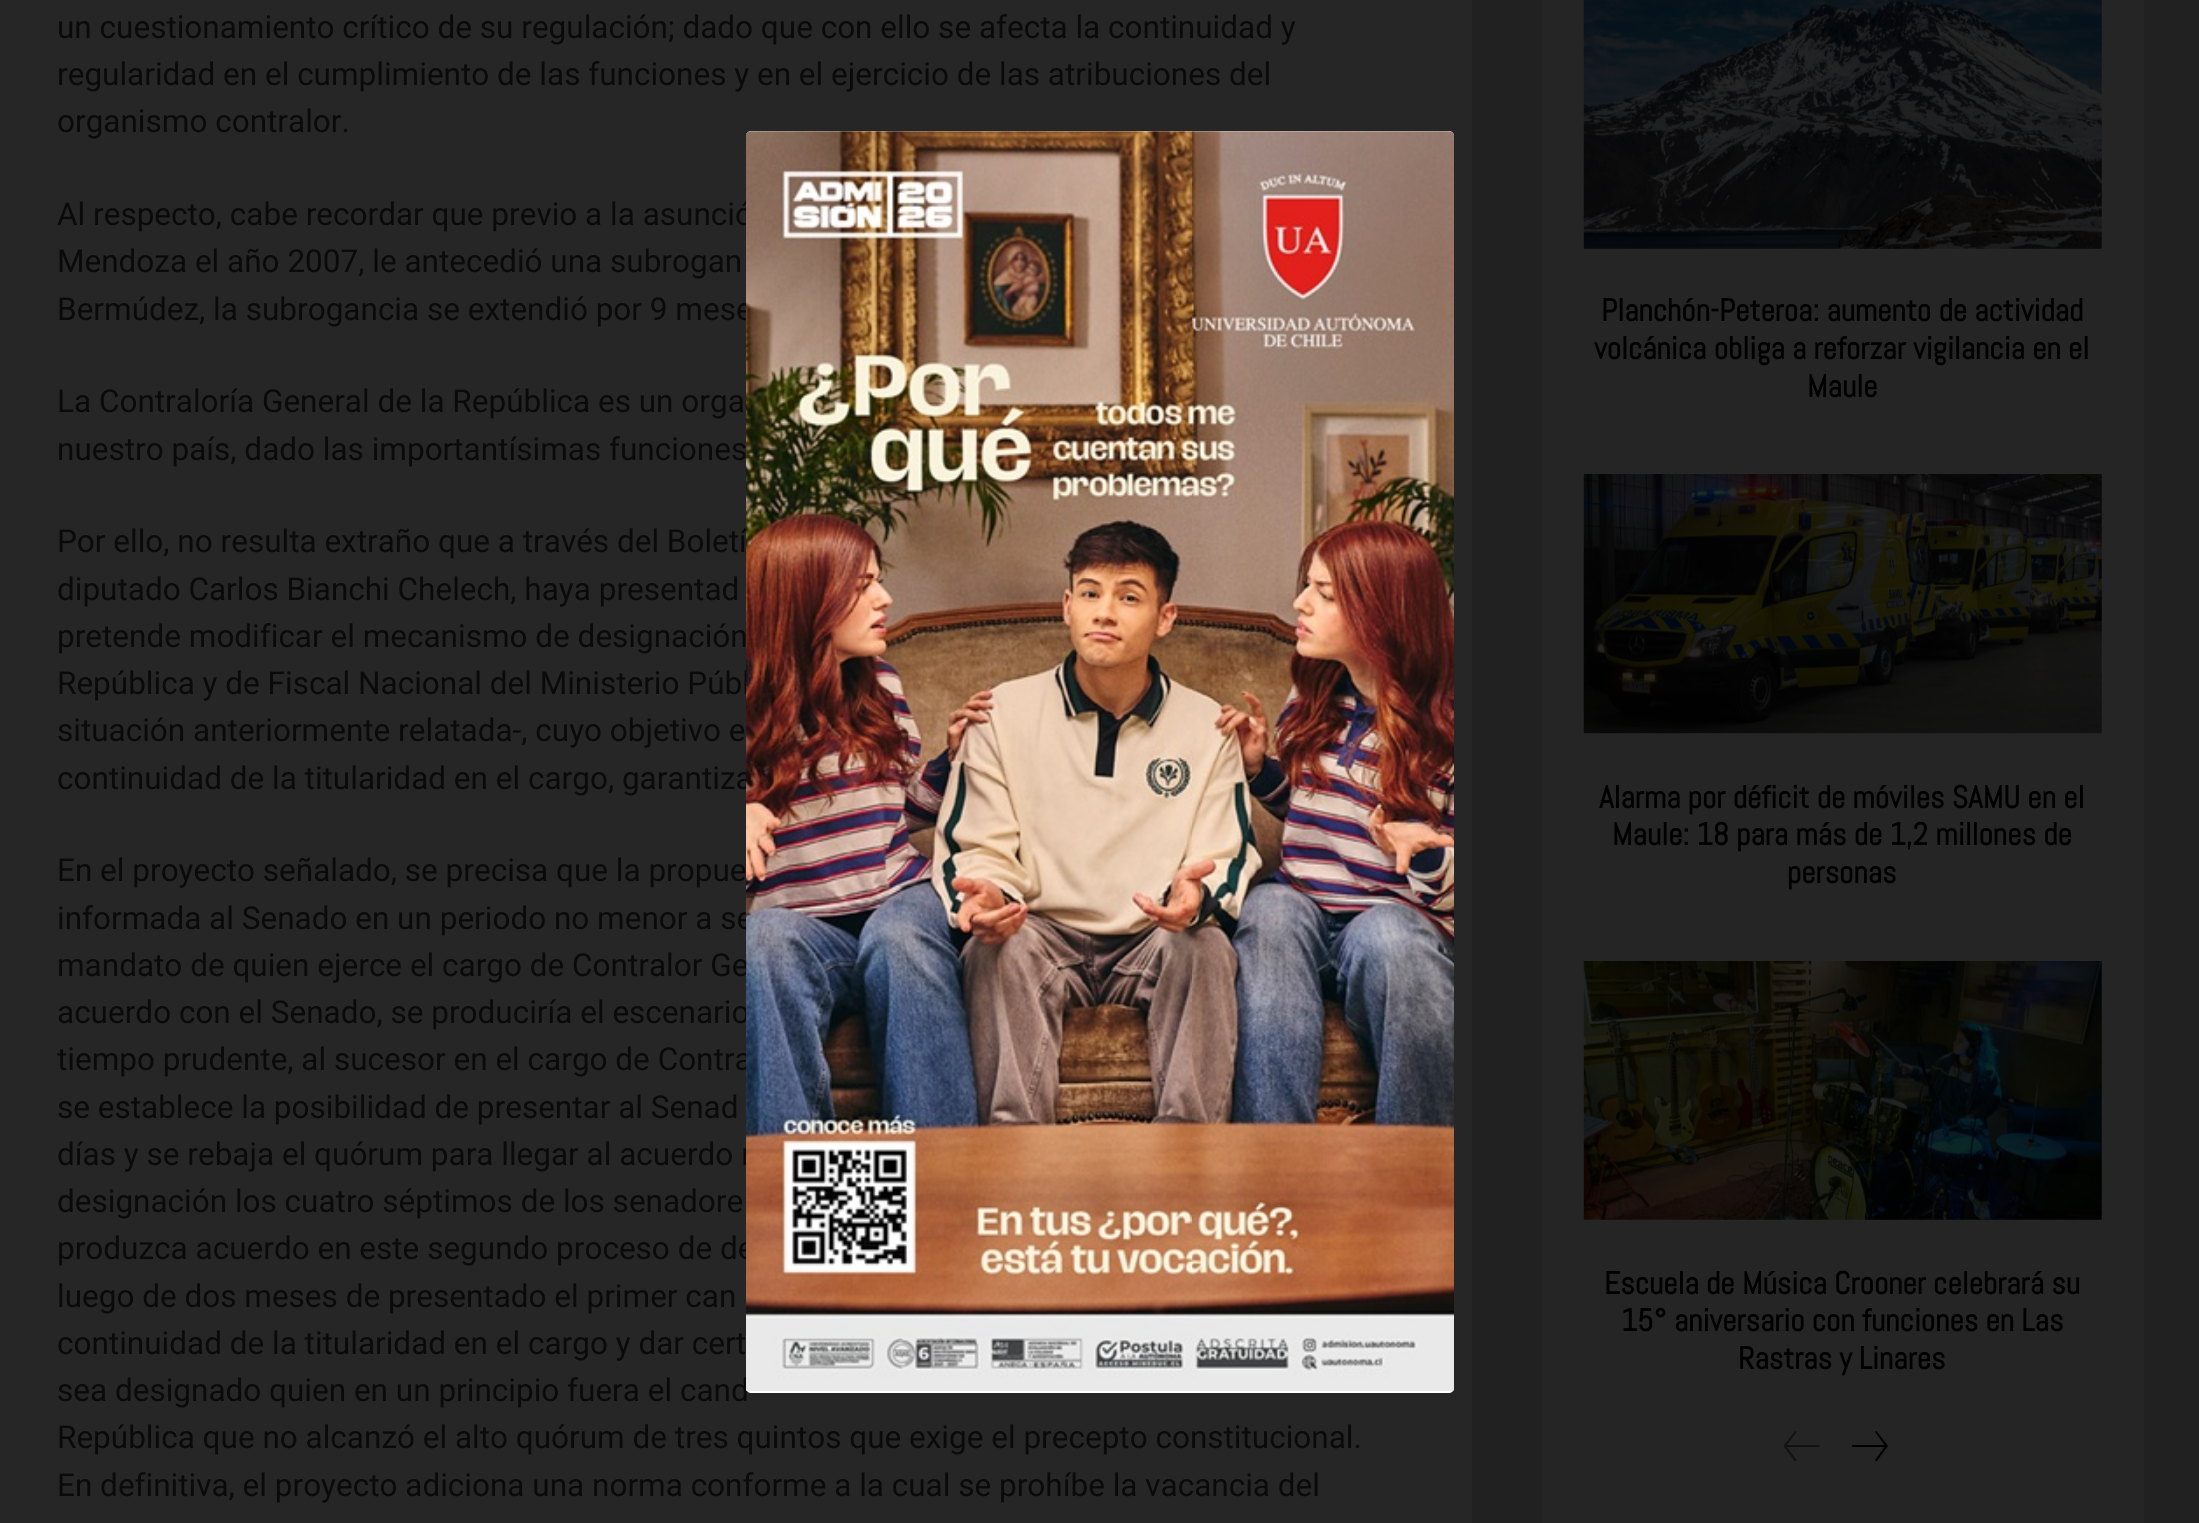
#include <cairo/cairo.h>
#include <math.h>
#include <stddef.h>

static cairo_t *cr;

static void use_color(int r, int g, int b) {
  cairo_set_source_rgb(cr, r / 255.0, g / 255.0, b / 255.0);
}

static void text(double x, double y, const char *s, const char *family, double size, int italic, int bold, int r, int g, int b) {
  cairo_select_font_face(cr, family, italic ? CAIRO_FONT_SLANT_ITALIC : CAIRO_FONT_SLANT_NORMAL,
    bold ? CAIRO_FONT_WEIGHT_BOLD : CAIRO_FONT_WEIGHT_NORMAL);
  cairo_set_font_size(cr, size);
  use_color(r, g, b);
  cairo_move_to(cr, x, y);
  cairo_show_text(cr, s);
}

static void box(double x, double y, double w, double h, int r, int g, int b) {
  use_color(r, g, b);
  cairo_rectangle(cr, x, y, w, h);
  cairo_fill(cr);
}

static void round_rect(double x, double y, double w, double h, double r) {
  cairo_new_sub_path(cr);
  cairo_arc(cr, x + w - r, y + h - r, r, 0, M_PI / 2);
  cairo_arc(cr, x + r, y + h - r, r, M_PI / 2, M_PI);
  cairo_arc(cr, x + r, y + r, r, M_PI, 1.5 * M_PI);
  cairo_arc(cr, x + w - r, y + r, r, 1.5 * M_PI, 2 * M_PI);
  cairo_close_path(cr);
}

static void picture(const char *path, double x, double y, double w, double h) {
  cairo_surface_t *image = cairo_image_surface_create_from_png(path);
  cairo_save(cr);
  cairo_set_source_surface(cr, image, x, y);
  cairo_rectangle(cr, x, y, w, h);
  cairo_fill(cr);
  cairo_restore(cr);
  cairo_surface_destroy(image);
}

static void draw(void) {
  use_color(33, 33, 33);
  cairo_paint(cr);
  box(0, 0, 1472, 1523, 38, 38, 38);
  box(1542, 0, 602, 1523, 37, 37, 37);
  picture("img_01.png", 1583, 0, 519, 249);
  picture("img_02.png", 1583, 474, 519, 260);
  picture("img_03.png", 1583, 961, 519, 259);
  use_color(18, 18, 19);
  cairo_new_path(cr);
  cairo_move_to(cr, 1796.5, 1460);
  cairo_line_to(cr, 1787, 1447);
  cairo_line_to(cr, 1819.5, 1447);
  cairo_line_to(cr, 1819.5, 1445);
  cairo_line_to(cr, 1787, 1445);
  cairo_line_to(cr, 1796.5, 1432);
  cairo_line_to(cr, 1795, 1431);
  cairo_line_to(cr, 1783.5, 1446);
  cairo_line_to(cr, 1795, 1461.5);
  cairo_close_path(cr);
  cairo_fill(cr);
  use_color(0, 0, 0);
  cairo_new_path(cr);
  cairo_move_to(cr, 1875, 1460);
  cairo_line_to(cr, 1876.5, 1461.5);
  cairo_line_to(cr, 1888, 1446);
  cairo_line_to(cr, 1876.5, 1431);
  cairo_line_to(cr, 1875, 1432);
  cairo_line_to(cr, 1884.5, 1445);
  cairo_line_to(cr, 1852, 1445);
  cairo_line_to(cr, 1852, 1447);
  cairo_line_to(cr, 1884.5, 1447);
  cairo_close_path(cr);
  cairo_fill(cr);
  text(57, 38, "un cuestionamiento crítico de su regulación; dado que con ello se afecta la continuidad y", "Roboto", 31.5, 0, 0, 10, 10, 10);
  text(57, 85, "regularidad en el cumplimiento de las funciones y en el ejercicio de las atribuciones del", "Roboto", 31.5, 0, 0, 10, 10, 10);
  text(57, 132, "organismo contralor.", "Roboto", 31.5, 0, 0, 10, 10, 10);
  text(57, 225, "Al respecto, cabe recordar que previo a la asunció", "Roboto", 31.5, 0, 0, 10, 10, 10);
  text(57, 272, "Mendoza el año 2007, le antecedió una subrogan", "Roboto", 31.5, 0, 0, 10, 10, 10);
  text(57, 320, "Bermúdez, la subrogancia se extendió por 9 mese", "Roboto", 31.5, 0, 0, 10, 10, 10);
  text(57, 412, "La Contraloría General de la República es un orga", "Roboto", 31.5, 0, 0, 10, 10, 10);
  text(57, 460, "nuestro país, dado las importantísimas funciones", "Roboto", 31.5, 0, 0, 10, 10, 10);
  text(57, 552, "Por ello, no resulta extraño que a través del Boletí", "Roboto", 31.5, 0, 0, 10, 10, 10);
  text(57, 600, "diputado Carlos Bianchi Chelech, haya presentad", "Roboto", 31.5, 0, 0, 10, 10, 10);
  text(57, 647, "pretende modificar el mecanismo de designación", "Roboto", 31.5, 0, 0, 10, 10, 10);
  text(57, 694, "República y de Fiscal Nacional del Ministerio Públ", "Roboto", 31.5, 0, 0, 10, 10, 10);
  text(57, 741, "situación anteriormente relatada-, cuyo objetivo e", "Roboto", 31.5, 0, 0, 10, 10, 10);
  text(57, 789, "continuidad de la titularidad en el cargo, garantiza", "Roboto", 31.5, 0, 0, 10, 10, 10);
  text(57, 881, "En el proyecto señalado, se precisa que la propue", "Roboto", 31.5, 0, 0, 10, 10, 10);
  text(57, 929, "informada al Senado en un periodo no menor a se", "Roboto", 31.5, 0, 0, 10, 10, 10);
  text(57, 976, "mandato de quien ejerce el cargo de Contralor Ge", "Roboto", 31.5, 0, 0, 10, 10, 10);
  text(57, 1023, "acuerdo con el Senado, se produciría el escenario", "Roboto", 31.5, 0, 0, 10, 10, 10);
  text(57, 1070, "tiempo prudente, al sucesor en el cargo de Contra", "Roboto", 31.5, 0, 0, 10, 10, 10);
  text(57, 1118, "se establece la posibilidad de presentar al Senad", "Roboto", 31.5, 0, 0, 10, 10, 10);
  text(57, 1165, "días y se rebaja el quórum para llegar al acuerdo r", "Roboto", 31.5, 0, 0, 10, 10, 10);
  text(57, 1212, "designación los cuatro séptimos de los senadore", "Roboto", 31.5, 0, 0, 10, 10, 10);
  text(57, 1259, "produzca acuerdo en este segundo proceso de de", "Roboto", 31.5, 0, 0, 10, 10, 10);
  text(57, 1307, "luego de dos meses de presentado el primer can", "Roboto", 31.5, 0, 0, 10, 10, 10);
  text(57, 1354, "continuidad de la titularidad en el cargo y dar cert", "Roboto", 31.5, 0, 0, 10, 10, 10);
  text(57, 1401, "sea designado quien en un principio fuera el cand", "Roboto", 31.5, 0, 0, 10, 10, 10);
  text(57, 1448, "República que no alcanzó el alto quórum de tres quintos que exige el precepto constitucional.", "Roboto", 31.5, 0, 0, 10, 10, 10);
  text(57, 1496, "En definitiva, el proyecto adiciona una norma conforme a la cual se prohíbe la vacancia del", "Roboto", 31.5, 0, 0, 10, 10, 10);
  text(1601, 321, "Planchón-Peteroa: aumento de actividad", "Abel", 31.5, 0, 1, 0, 0, 0);
  text(1594, 359, "volcánica obliga a reforzar vigilancia en el", "Abel", 31.5, 0, 1, 0, 0, 0);
  text(1807, 397, "Maule", "Abel", 31.5, 0, 1, 0, 0, 0);
  text(1599, 808, "Alarma por déficit de móviles SAMU en el", "Abel", 31.5, 0, 1, 0, 0, 0);
  text(1612, 845, "Maule: 18 para más de 1,2 millones de", "Abel", 31.5, 0, 1, 0, 0, 0);
  text(1787, 883, "personas", "Abel", 31.5, 0, 1, 0, 0, 0);
  text(1604, 1294, "Escuela de Música Crooner celebrará su", "Abel", 31.5, 0, 1, 0, 0, 0);
  text(1621, 1331, "15° aniversario con funciones en Las", "Abel", 31.5, 0, 1, 0, 0, 0);
  text(1738, 1369, "Rastras y Linares", "Abel", 31.5, 0, 1, 0, 0, 0);
  use_color(255, 255, 255);
  round_rect(746, 131, 708, 1262, 5);
  cairo_fill(cr);
  picture("img_04.png", 746, 131, 708, 1260);
}

int main(void) {
  cairo_surface_t *surface = cairo_image_surface_create(CAIRO_FORMAT_RGB24, 2199, 1523);
  cr = cairo_create(surface);
  cairo_font_options_t *options = cairo_font_options_create();
  cairo_font_options_set_hint_metrics(options, CAIRO_HINT_METRICS_OFF);
  cairo_font_options_set_hint_style(options, CAIRO_HINT_STYLE_NONE);
  cairo_set_font_options(cr, options);
  cairo_set_miter_limit(cr, 4);
  draw();
  cairo_surface_write_to_png(surface, "out.png");
  cairo_font_options_destroy(options);
  cairo_destroy(cr);
  cairo_surface_destroy(surface);
  return 0;
}
